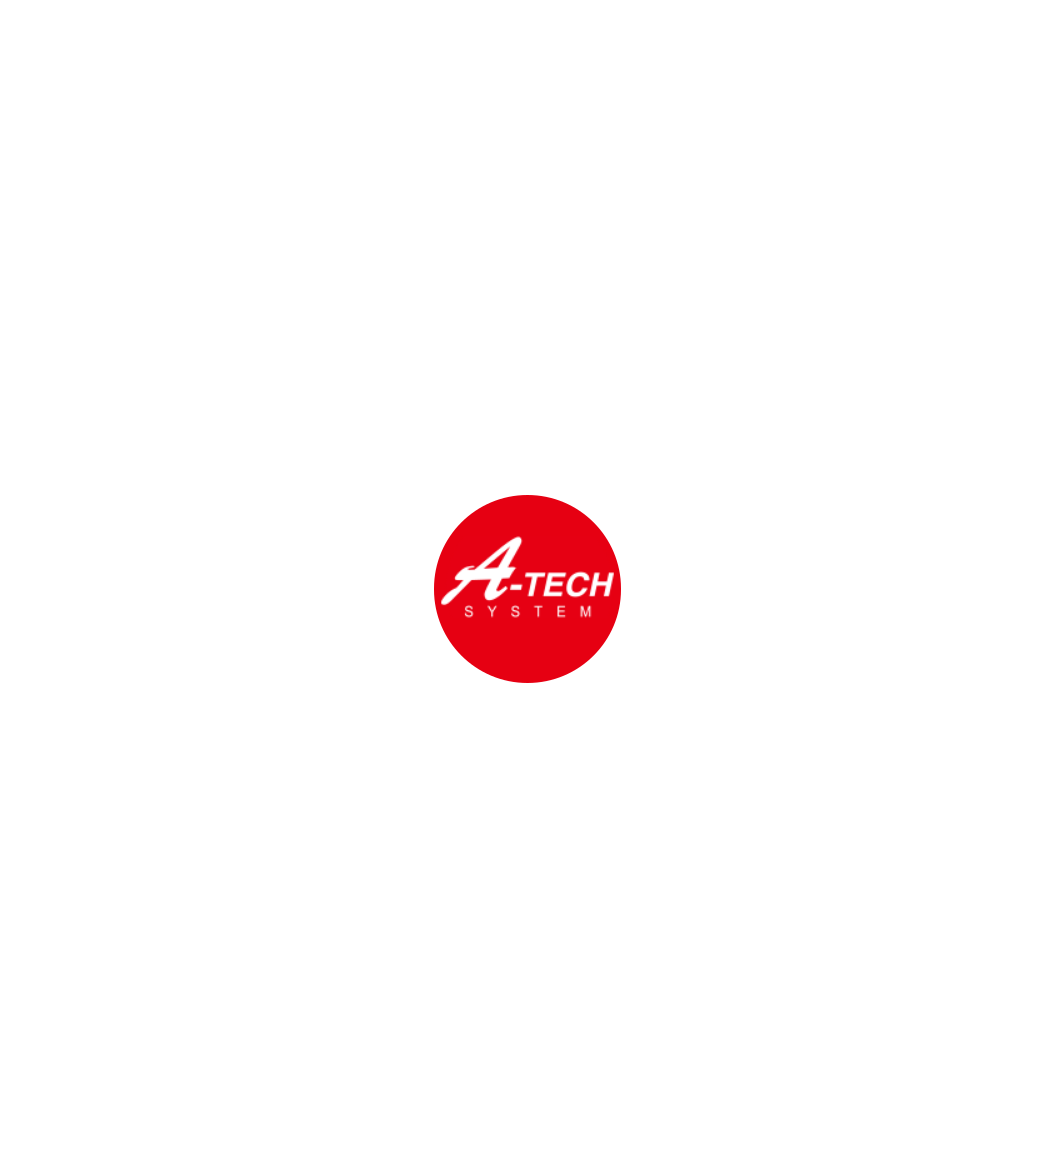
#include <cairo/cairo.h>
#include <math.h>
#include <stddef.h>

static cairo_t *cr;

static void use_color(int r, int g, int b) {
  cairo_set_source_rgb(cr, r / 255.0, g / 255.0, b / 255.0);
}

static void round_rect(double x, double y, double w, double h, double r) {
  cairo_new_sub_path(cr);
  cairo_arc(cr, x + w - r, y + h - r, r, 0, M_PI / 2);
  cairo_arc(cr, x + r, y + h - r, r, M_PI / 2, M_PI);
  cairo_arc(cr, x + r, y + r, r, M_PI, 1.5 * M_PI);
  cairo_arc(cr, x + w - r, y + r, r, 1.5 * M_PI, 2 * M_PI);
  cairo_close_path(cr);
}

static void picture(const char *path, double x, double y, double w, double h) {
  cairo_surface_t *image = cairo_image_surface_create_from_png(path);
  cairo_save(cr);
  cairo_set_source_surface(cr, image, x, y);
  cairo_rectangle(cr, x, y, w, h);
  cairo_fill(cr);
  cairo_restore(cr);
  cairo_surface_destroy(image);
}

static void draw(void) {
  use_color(255, 255, 255);
  cairo_paint(cr);
  use_color(230, 0, 18);
  round_rect(434, 495, 187, 188, 93.5);
  cairo_fill(cr);
  picture("img_01.png", 441, 536, 173, 82);
}

int main(void) {
  cairo_surface_t *surface = cairo_image_surface_create(CAIRO_FORMAT_RGB24, 1054, 1176);
  cr = cairo_create(surface);
  cairo_font_options_t *options = cairo_font_options_create();
  cairo_font_options_set_hint_metrics(options, CAIRO_HINT_METRICS_OFF);
  cairo_font_options_set_hint_style(options, CAIRO_HINT_STYLE_NONE);
  cairo_set_font_options(cr, options);
  cairo_set_miter_limit(cr, 4);
  draw();
  cairo_surface_write_to_png(surface, "out.png");
  cairo_font_options_destroy(options);
  cairo_destroy(cr);
  cairo_surface_destroy(surface);
  return 0;
}
